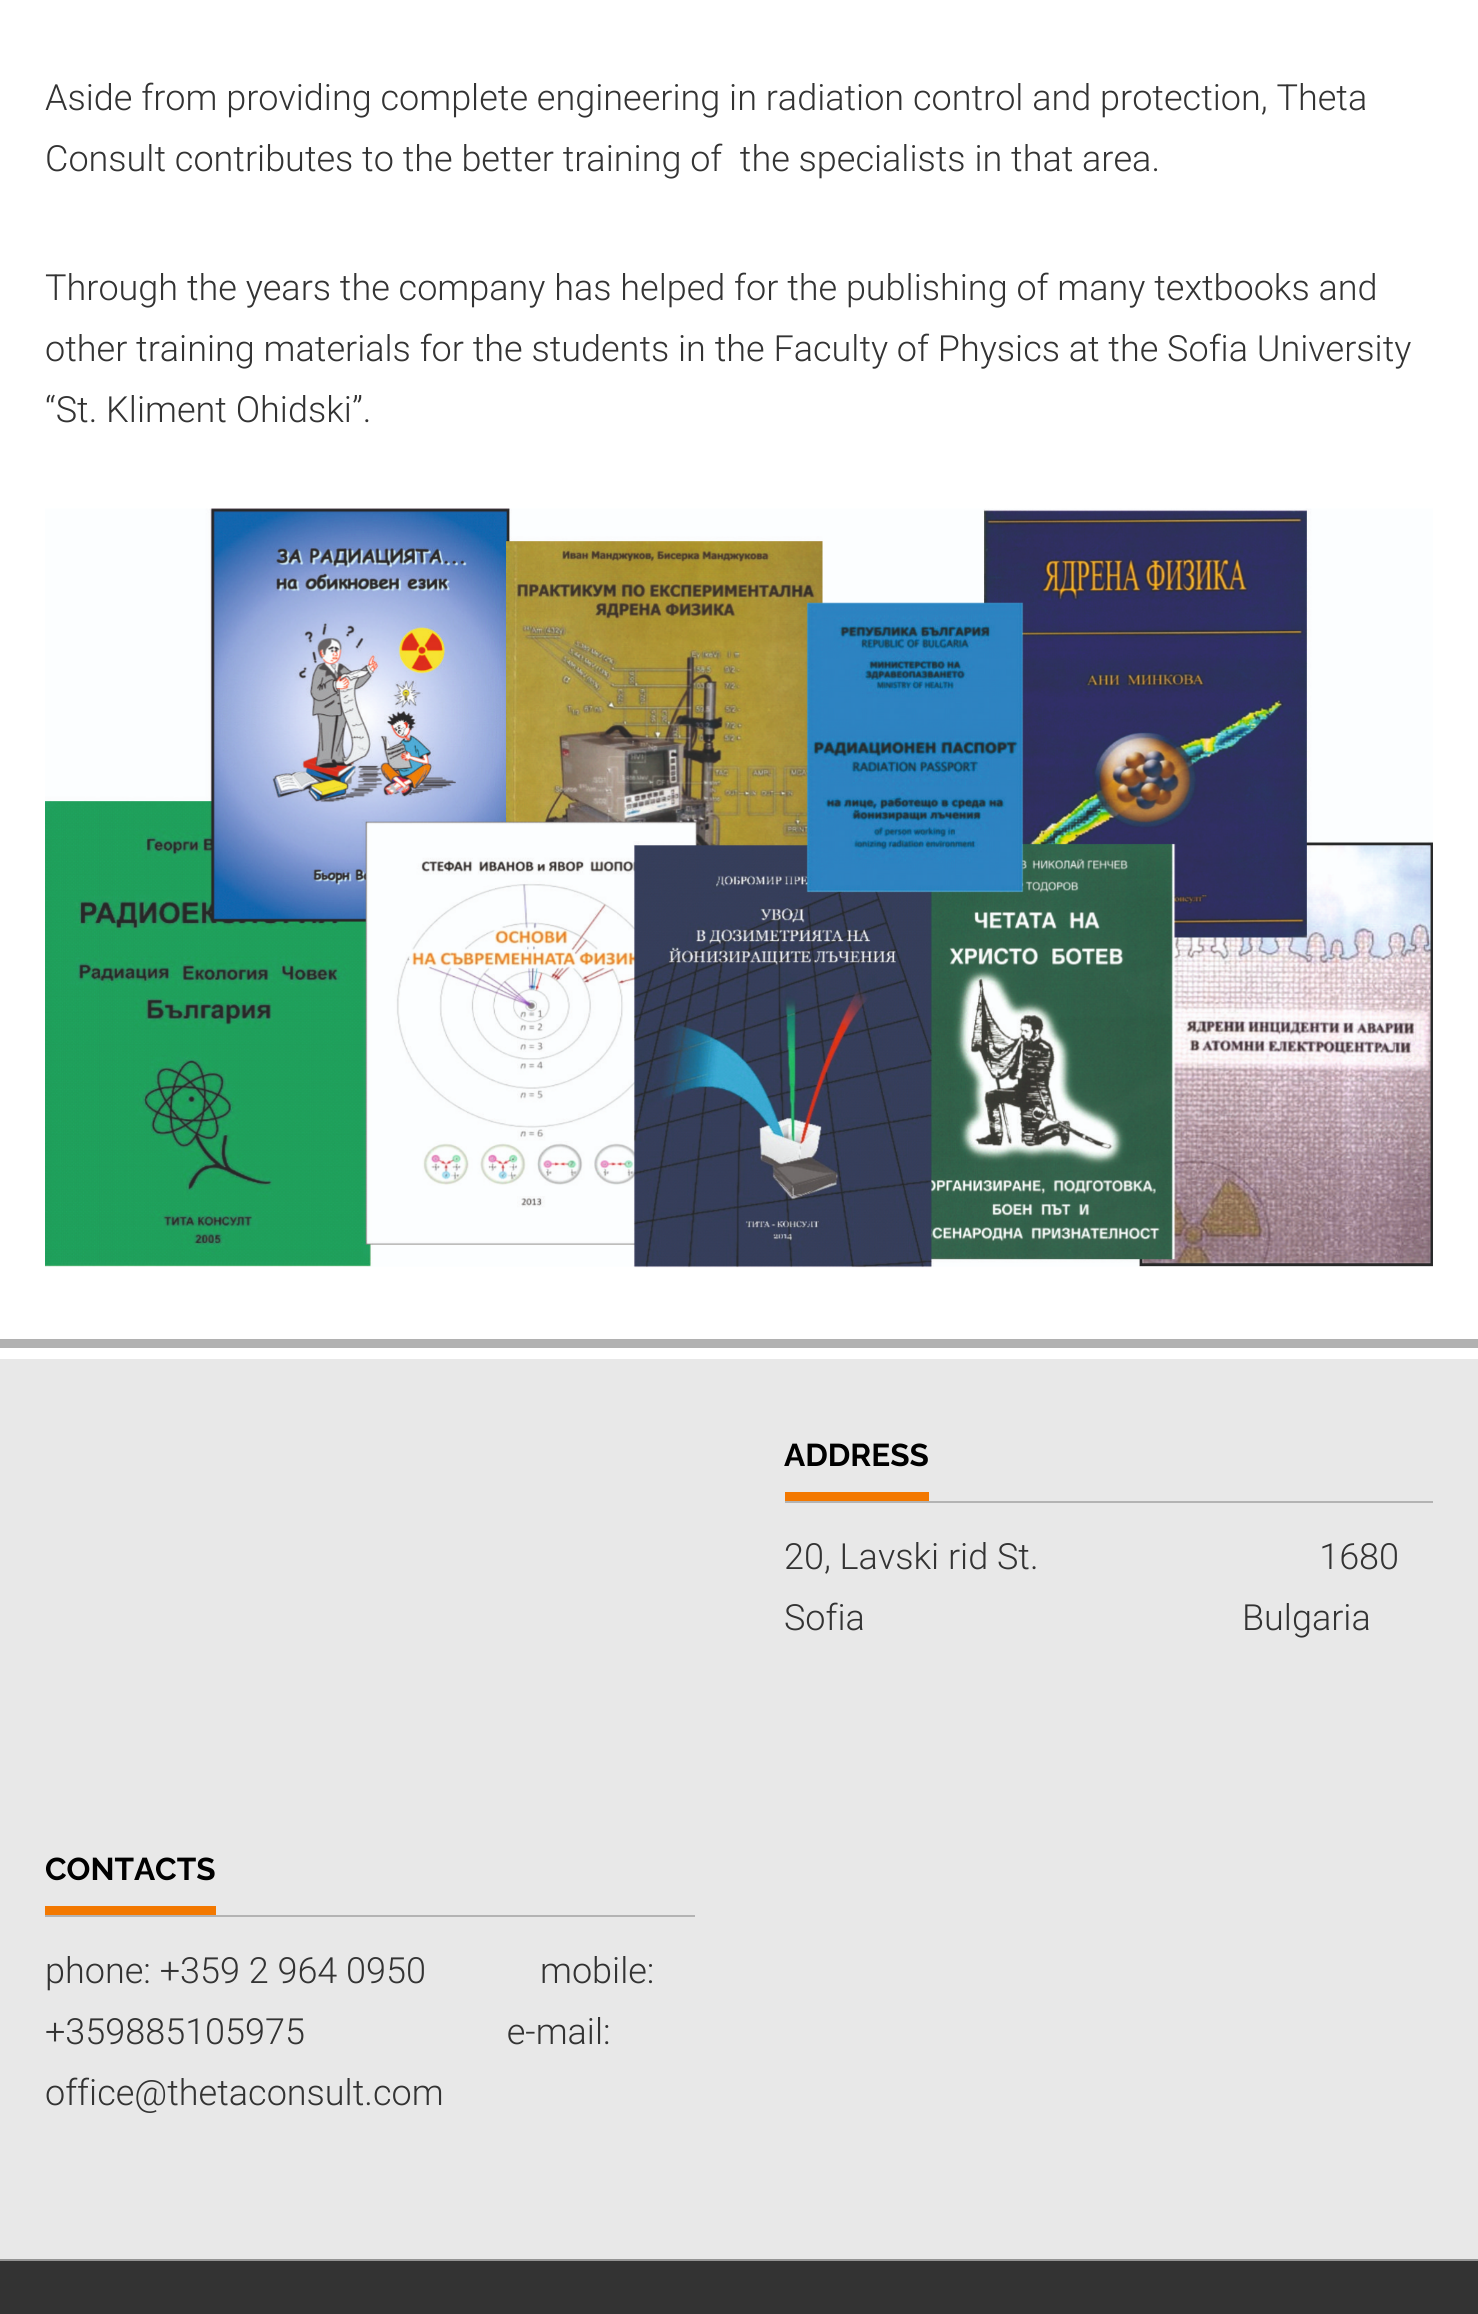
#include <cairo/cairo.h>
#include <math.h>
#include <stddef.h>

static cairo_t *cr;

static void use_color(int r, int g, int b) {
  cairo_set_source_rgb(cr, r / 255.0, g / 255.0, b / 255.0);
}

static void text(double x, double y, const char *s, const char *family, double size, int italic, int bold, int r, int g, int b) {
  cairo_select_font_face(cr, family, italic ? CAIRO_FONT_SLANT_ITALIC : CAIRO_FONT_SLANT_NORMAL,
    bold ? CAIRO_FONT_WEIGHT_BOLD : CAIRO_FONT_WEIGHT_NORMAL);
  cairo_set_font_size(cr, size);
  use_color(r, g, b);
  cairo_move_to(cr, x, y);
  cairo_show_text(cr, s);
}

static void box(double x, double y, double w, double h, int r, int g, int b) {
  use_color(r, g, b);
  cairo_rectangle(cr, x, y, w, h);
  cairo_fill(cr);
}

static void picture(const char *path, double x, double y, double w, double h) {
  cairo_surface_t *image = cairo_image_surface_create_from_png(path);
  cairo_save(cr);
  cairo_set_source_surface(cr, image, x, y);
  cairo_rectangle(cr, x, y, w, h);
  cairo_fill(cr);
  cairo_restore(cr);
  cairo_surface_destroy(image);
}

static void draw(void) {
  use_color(255, 255, 255);
  cairo_paint(cr);
  picture("img_01.png", 45, 508, 1388, 760);
  box(0, 1359, 1478, 900, 232, 232, 232);
  box(0, 1339, 1478, 9, 177, 177, 177);
  box(785, 1501, 648, 2, 179, 179, 179);
  box(785, 1492, 144, 9, 243, 120, 0);
  box(45, 1915, 650, 2, 179, 179, 179);
  box(45, 1906, 171, 9, 243, 120, 0);
  box(0, 2261, 1478, 53, 51, 51, 51);
  box(0, 2259, 1478, 2, 148, 148, 148);
  text(45, 110, "Aside from providing complete engineering in radiation control and protection, Theta", "Roboto Light", 36, 0, 0, 51, 51, 51);
  text(45, 171, "Consult contributes to the better training of  the specialists in that area.", "Roboto Light", 36, 0, 0, 51, 51, 51);
  text(45, 300, "Through the years the company has helped for the publishing of many textbooks and", "Roboto Light", 36, 0, 0, 51, 51, 51);
  text(45, 361, "other training materials for the students in the Faculty of Physics at the Sofia University", "Roboto Light", 36, 0, 0, 51, 51, 51);
  text(45, 422, "“St. Kliment Ohidski”.", "Roboto Light", 36, 0, 0, 51, 51, 51);
  text(784, 1466, "ADDRESS", "Raleway", 31.5, 0, 1, 0, 0, 0);
  text(784, 1569, "20, Lavski rid St.                                1680", "Roboto Light", 36, 0, 0, 51, 51, 51);
  text(784, 1630, "Sofia                                           Bulgaria", "Roboto Light", 36, 0, 0, 51, 51, 51);
  text(45, 1880, "CONTACTS", "Raleway", 31.5, 0, 1, 0, 0, 0);
  text(45, 1983, "phone: +359 2 964 0950             mobile:", "Roboto Light", 36, 0, 0, 51, 51, 51);
  text(45, 2044, "+359885105975                       e-mail:", "Roboto Light", 36, 0, 0, 51, 51, 51);
  text(45, 2105, "office@thetaconsult.com", "Roboto Light", 36, 0, 0, 51, 51, 51);
}

int main(void) {
  cairo_surface_t *surface = cairo_image_surface_create(CAIRO_FORMAT_RGB24, 1478, 2314);
  cr = cairo_create(surface);
  cairo_font_options_t *options = cairo_font_options_create();
  cairo_font_options_set_hint_metrics(options, CAIRO_HINT_METRICS_OFF);
  cairo_font_options_set_hint_style(options, CAIRO_HINT_STYLE_NONE);
  cairo_set_font_options(cr, options);
  cairo_set_miter_limit(cr, 4);
  draw();
  cairo_surface_write_to_png(surface, "out.png");
  cairo_font_options_destroy(options);
  cairo_destroy(cr);
  cairo_surface_destroy(surface);
  return 0;
}
